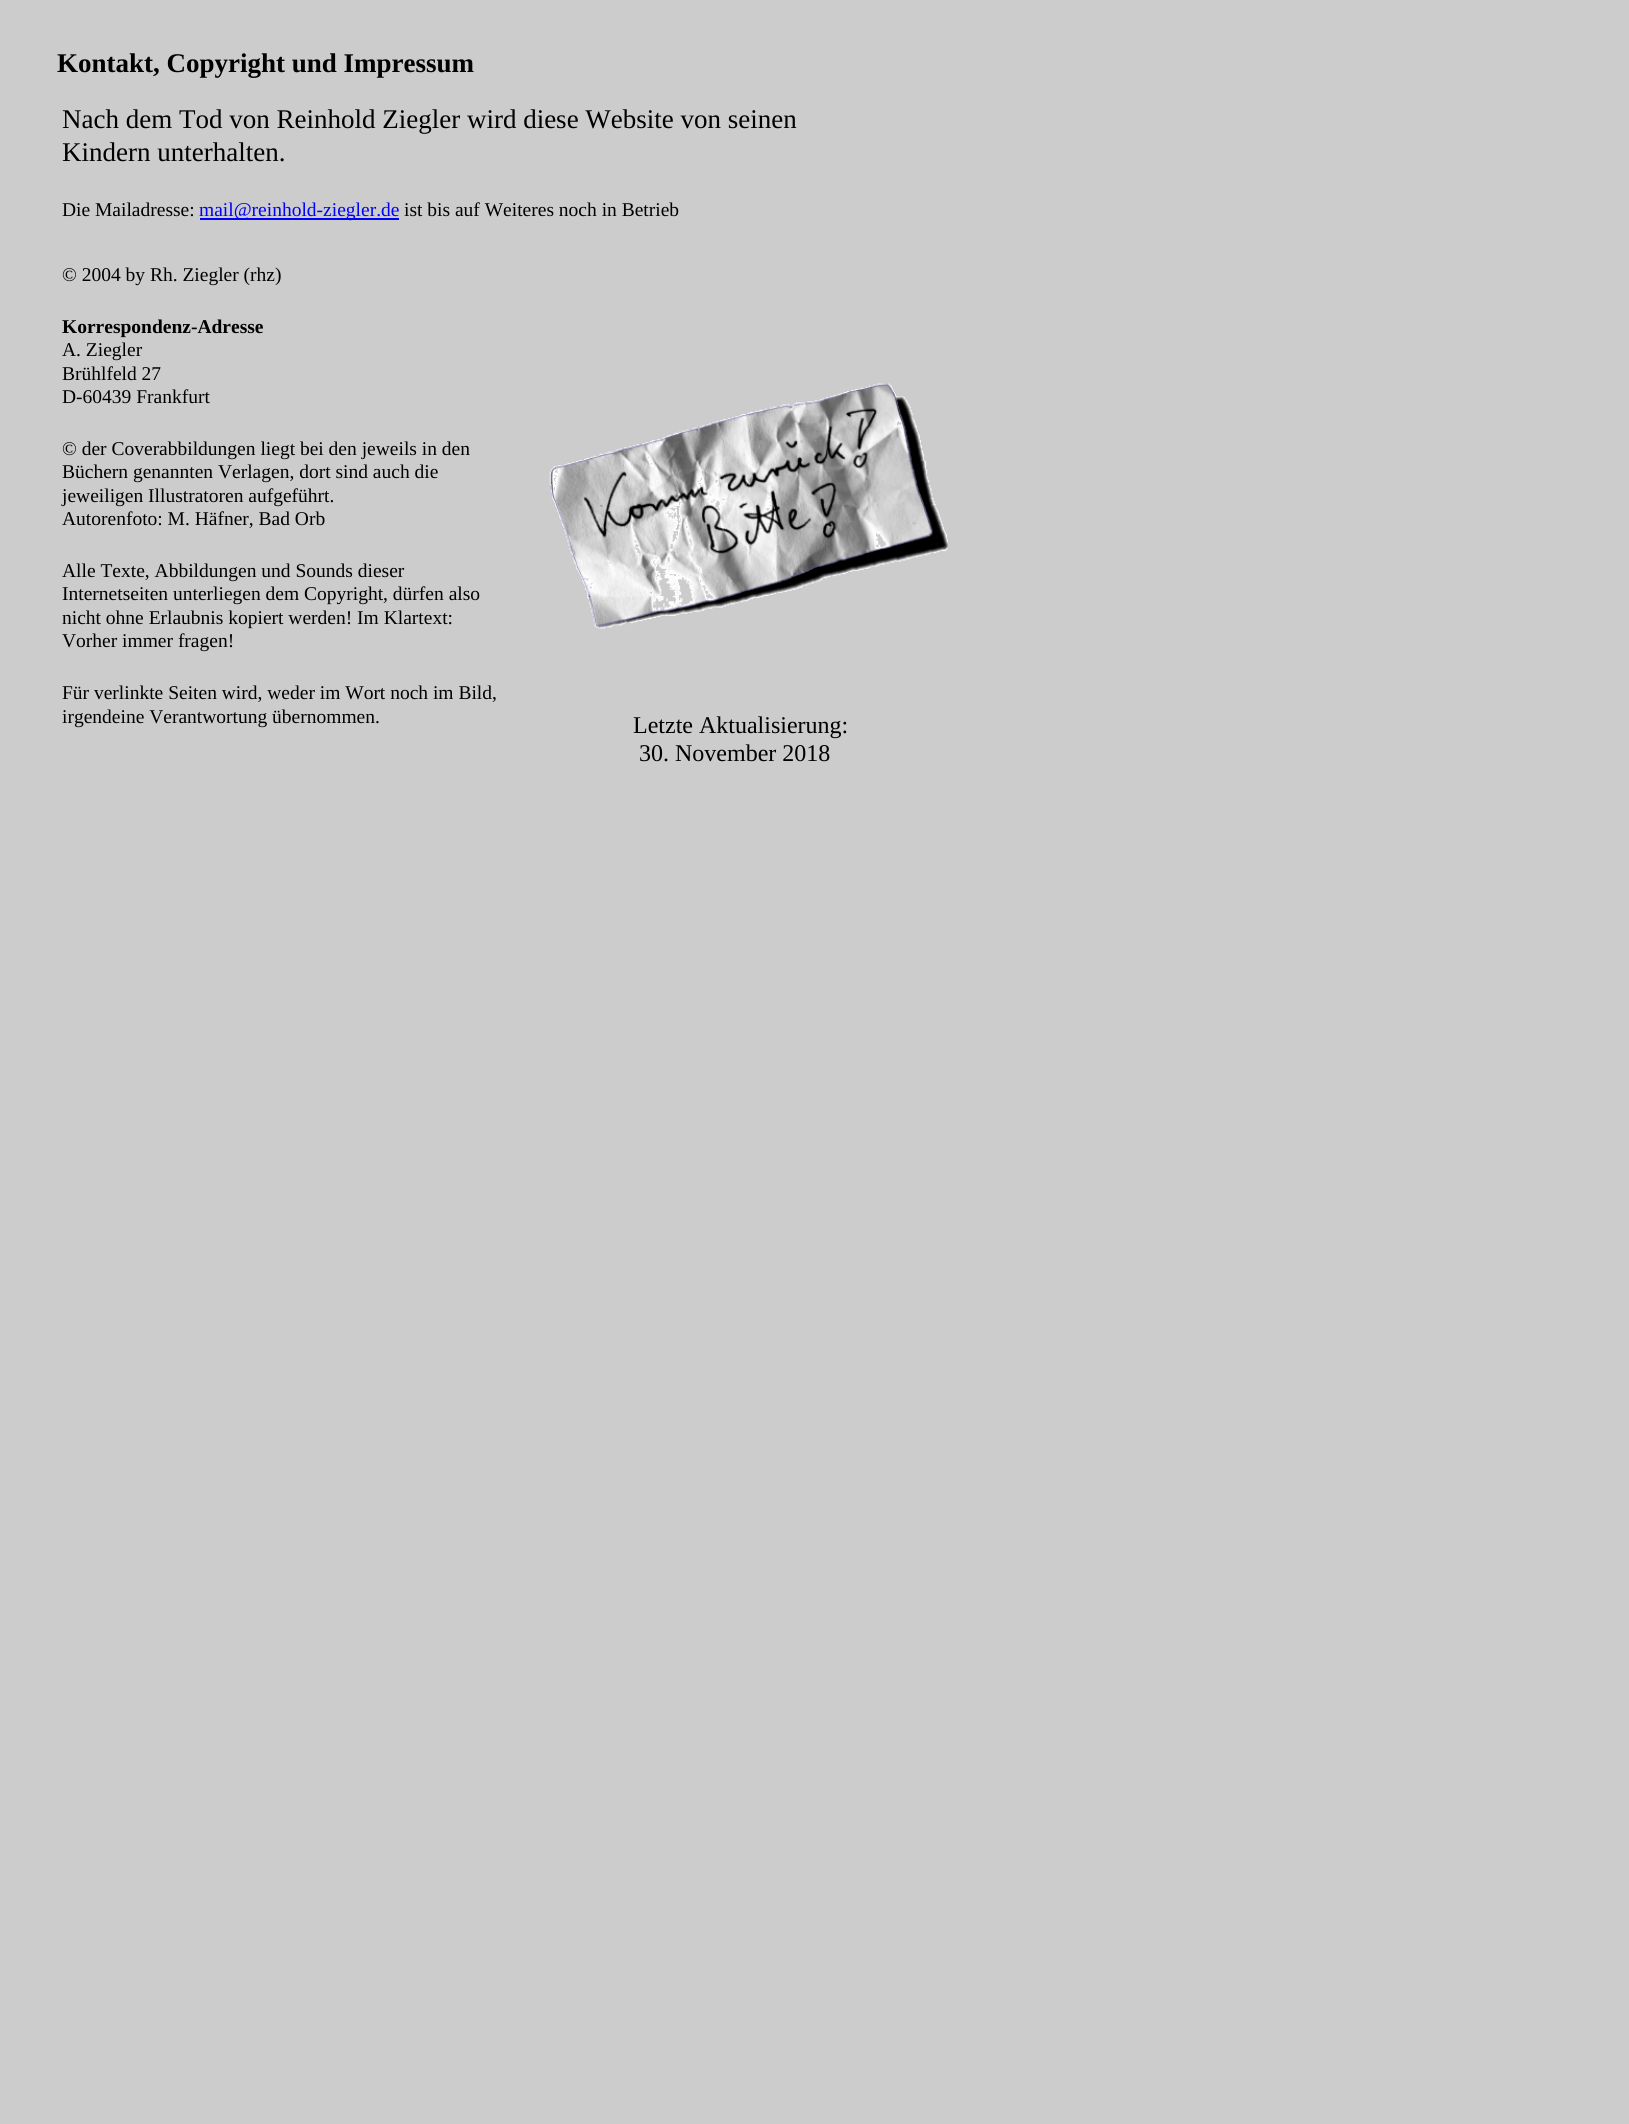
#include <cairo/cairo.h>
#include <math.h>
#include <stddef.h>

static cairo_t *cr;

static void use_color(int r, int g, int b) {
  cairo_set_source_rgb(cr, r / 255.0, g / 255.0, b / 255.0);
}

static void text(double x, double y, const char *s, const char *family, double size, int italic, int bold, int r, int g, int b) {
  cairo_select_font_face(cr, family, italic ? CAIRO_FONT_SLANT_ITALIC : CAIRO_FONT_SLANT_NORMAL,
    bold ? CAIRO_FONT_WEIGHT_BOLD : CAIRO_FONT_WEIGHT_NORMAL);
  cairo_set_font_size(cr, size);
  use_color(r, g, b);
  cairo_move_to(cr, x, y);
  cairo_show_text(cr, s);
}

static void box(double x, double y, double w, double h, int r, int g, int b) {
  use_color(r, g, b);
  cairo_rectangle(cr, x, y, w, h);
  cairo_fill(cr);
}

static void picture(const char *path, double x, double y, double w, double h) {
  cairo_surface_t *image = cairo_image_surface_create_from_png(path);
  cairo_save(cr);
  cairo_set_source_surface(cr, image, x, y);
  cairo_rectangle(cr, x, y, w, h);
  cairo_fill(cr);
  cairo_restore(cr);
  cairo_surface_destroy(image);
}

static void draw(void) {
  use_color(204, 204, 204);
  cairo_paint(cr);
  box(200, 218, 199, 2, 0, 0, 255);
  picture("img_01.png", 549, 383, 399, 246);
  text(57, 72, "Kontakt, Copyright und Impressum", "Liberation Serif", 27, 0, 1, 0, 0, 0);
  text(62, 128, "Nach dem Tod von Reinhold Ziegler wird diese Website von seinen", "Liberation Serif", 27, 0, 0, 0, 0, 0);
  text(62, 161, "Kindern unterhalten.", "Liberation Serif", 27, 0, 0, 0, 0, 0);
  text(62, 216, "Die Mailadresse:", "Liberation Serif", 19.5, 0, 0, 0, 0, 0);
  text(199, 216, "mail@reinhold-ziegler.de", "Liberation Serif", 19.5, 0, 0, 0, 0, 255);
  text(404, 216, "ist bis auf Weiteres noch in Betrieb", "Liberation Serif", 19.5, 0, 0, 0, 0, 0);
  text(62, 281, "© 2004 by Rh. Ziegler (rhz)", "Liberation Serif", 19.5, 0, 0, 0, 0, 0);
  text(62, 333, "Korrespondenz-Adresse", "Liberation Serif", 19.5, 0, 1, 0, 0, 0);
  text(62, 356, "A. Ziegler", "Liberation Serif", 19.5, 0, 0, 0, 0, 0);
  text(62, 380, "Brühlfeld 27", "Liberation Serif", 19.5, 0, 0, 0, 0, 0);
  text(62, 403, "D-60439 Frankfurt", "Liberation Serif", 19.5, 0, 0, 0, 0, 0);
  text(62, 455, "© der Coverabbildungen liegt bei den jeweils in den", "Liberation Serif", 19.5, 0, 0, 0, 0, 0);
  text(62, 478, "Büchern genannten Verlagen, dort sind auch die", "Liberation Serif", 19.5, 0, 0, 0, 0, 0);
  text(62, 502, "jeweiligen Illustratoren aufgeführt.", "Liberation Serif", 19.5, 0, 0, 0, 0, 0);
  text(62, 525, "Autorenfoto: M. Häfner, Bad Orb", "Liberation Serif", 19.5, 0, 0, 0, 0, 0);
  text(62, 577, "Alle Texte, Abbildungen und Sounds dieser", "Liberation Serif", 19.5, 0, 0, 0, 0, 0);
  text(62, 600, "Internetseiten unterliegen dem Copyright, dürfen also", "Liberation Serif", 19.5, 0, 0, 0, 0, 0);
  text(62, 624, "nicht ohne Erlaubnis kopiert werden! Im Klartext:", "Liberation Serif", 19.5, 0, 0, 0, 0, 0);
  text(62, 647, "Vorher immer fragen!", "Liberation Serif", 19.5, 0, 0, 0, 0, 0);
  text(62, 699, "Für verlinkte Seiten wird, weder im Wort noch im Bild,", "Liberation Serif", 19.5, 0, 0, 0, 0, 0);
  text(62, 723, "irgendeine Verantwortung übernommen.", "Liberation Serif", 19.5, 0, 0, 0, 0, 0);
  text(633, 733, "Letzte Aktualisierung:", "Liberation Serif", 24, 0, 0, 0, 0, 0);
  text(639, 761, "30. November 2018", "Liberation Serif", 24, 0, 0, 0, 0, 0);
}

int main(void) {
  cairo_surface_t *surface = cairo_image_surface_create(CAIRO_FORMAT_RGB24, 1629, 2124);
  cr = cairo_create(surface);
  cairo_font_options_t *options = cairo_font_options_create();
  cairo_font_options_set_hint_metrics(options, CAIRO_HINT_METRICS_OFF);
  cairo_font_options_set_hint_style(options, CAIRO_HINT_STYLE_NONE);
  cairo_set_font_options(cr, options);
  cairo_set_miter_limit(cr, 4);
  draw();
  cairo_surface_write_to_png(surface, "out.png");
  cairo_font_options_destroy(options);
  cairo_destroy(cr);
  cairo_surface_destroy(surface);
  return 0;
}
